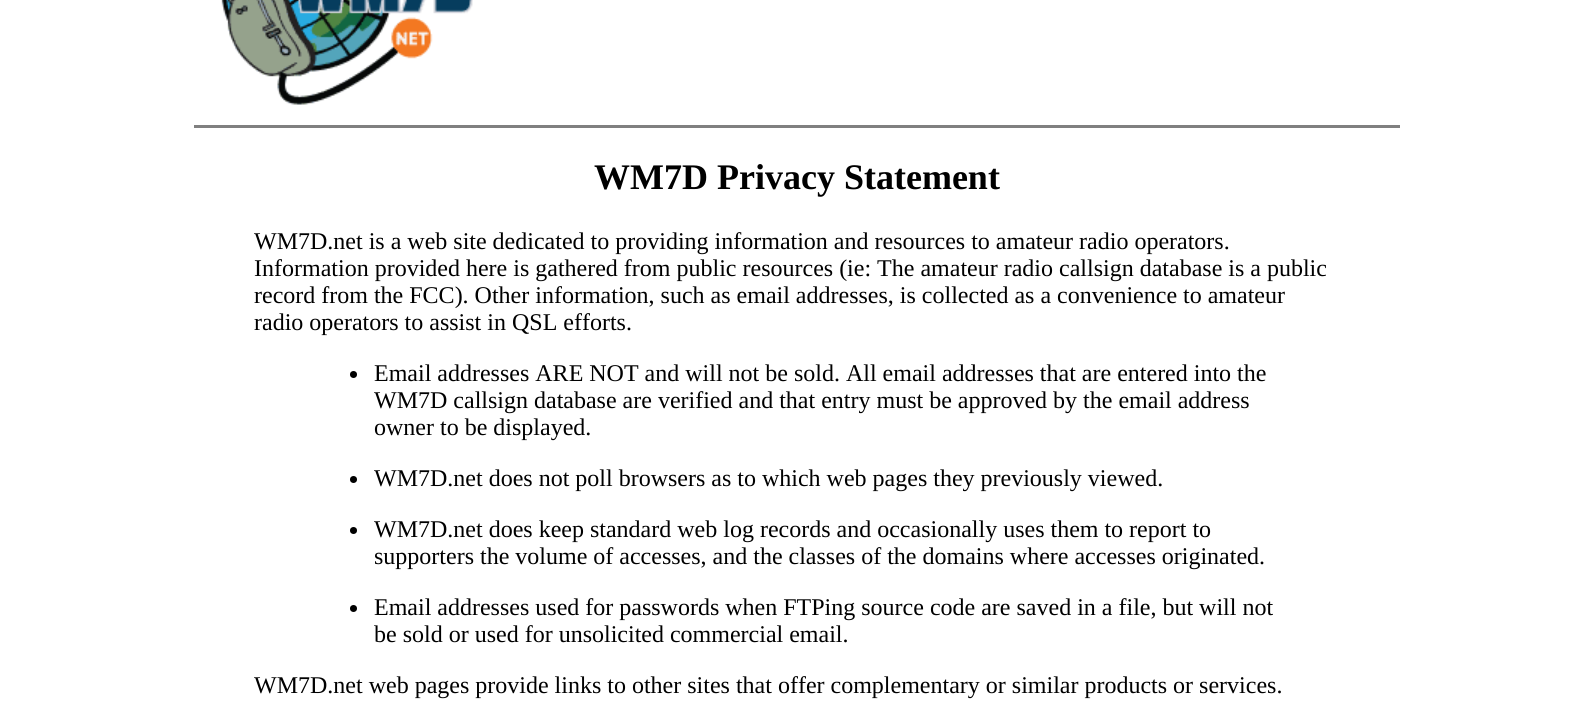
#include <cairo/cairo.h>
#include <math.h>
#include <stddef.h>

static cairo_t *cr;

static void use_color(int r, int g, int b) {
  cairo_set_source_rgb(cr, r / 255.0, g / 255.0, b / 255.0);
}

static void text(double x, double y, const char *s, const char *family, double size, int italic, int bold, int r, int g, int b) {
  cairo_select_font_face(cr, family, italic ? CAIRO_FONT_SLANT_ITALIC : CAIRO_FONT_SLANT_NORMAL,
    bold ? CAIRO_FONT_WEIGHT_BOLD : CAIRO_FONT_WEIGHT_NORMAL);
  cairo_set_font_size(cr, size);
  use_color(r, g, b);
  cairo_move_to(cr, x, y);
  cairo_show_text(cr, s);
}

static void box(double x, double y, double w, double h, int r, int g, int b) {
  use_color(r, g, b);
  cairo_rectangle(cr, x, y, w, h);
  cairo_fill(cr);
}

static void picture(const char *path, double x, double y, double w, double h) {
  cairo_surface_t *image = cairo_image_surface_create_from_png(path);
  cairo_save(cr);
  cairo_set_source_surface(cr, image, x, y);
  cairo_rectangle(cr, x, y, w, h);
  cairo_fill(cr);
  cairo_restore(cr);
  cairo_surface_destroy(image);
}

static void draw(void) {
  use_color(255, 255, 255);
  cairo_paint(cr);
  picture("img_01.png", 221, 0, 252, 105);
  box(194, 125, 1206, 3, 128, 128, 128);
  use_color(0, 0, 0);
  cairo_arc(cr, 353.5, 374.5, 3.5, 0, 2 * M_PI);
  cairo_fill(cr);
  cairo_arc(cr, 353.5, 479.5, 3.5, 0, 2 * M_PI);
  cairo_fill(cr);
  cairo_arc(cr, 353.5, 530.5, 3.5, 0, 2 * M_PI);
  cairo_fill(cr);
  cairo_arc(cr, 353.5, 608.5, 3.5, 0, 2 * M_PI);
  cairo_fill(cr);
  text(594, 189, "WM7D Privacy Statement", "Liberation Serif", 36, 0, 1, 0, 0, 0);
  text(254, 249, "WM7D.net is a web site dedicated to providing information and resources to amateur radio operators.", "Liberation Serif", 24, 0, 0, 0, 0, 0);
  text(254, 276, "Information provided here is gathered from public resources (ie: The amateur radio callsign database is a public", "Liberation Serif", 24, 0, 0, 0, 0, 0);
  text(254, 303, "record from the FCC). Other information, such as email addresses, is collected as a convenience to amateur", "Liberation Serif", 24, 0, 0, 0, 0, 0);
  text(254, 330, "radio operators to assist in QSL efforts.", "Liberation Serif", 24, 0, 0, 0, 0, 0);
  text(374, 381, "Email addresses ARE NOT and will not be sold. All email addresses that are entered into the", "Liberation Serif", 24, 0, 0, 0, 0, 0);
  text(374, 408, "WM7D callsign database are verified and that entry must be approved by the email address", "Liberation Serif", 24, 0, 0, 0, 0, 0);
  text(374, 435, "owner to be displayed.", "Liberation Serif", 24, 0, 0, 0, 0, 0);
  text(374, 486, "WM7D.net does not poll browsers as to which web pages they previously viewed.", "Liberation Serif", 24, 0, 0, 0, 0, 0);
  text(374, 537, "WM7D.net does keep standard web log records and occasionally uses them to report to", "Liberation Serif", 24, 0, 0, 0, 0, 0);
  text(374, 564, "supporters the volume of accesses, and the classes of the domains where accesses originated.", "Liberation Serif", 24, 0, 0, 0, 0, 0);
  text(374, 615, "Email addresses used for passwords when FTPing source code are saved in a file, but will not", "Liberation Serif", 24, 0, 0, 0, 0, 0);
  text(374, 642, "be sold or used for unsolicited commercial email.", "Liberation Serif", 24, 0, 0, 0, 0, 0);
  text(254, 693, "WM7D.net web pages provide links to other sites that offer complementary or similar products or services.", "Liberation Serif", 24, 0, 0, 0, 0, 0);
}

int main(void) {
  cairo_surface_t *surface = cairo_image_surface_create(CAIRO_FORMAT_RGB24, 1592, 705);
  cr = cairo_create(surface);
  cairo_font_options_t *options = cairo_font_options_create();
  cairo_font_options_set_hint_metrics(options, CAIRO_HINT_METRICS_OFF);
  cairo_font_options_set_hint_style(options, CAIRO_HINT_STYLE_NONE);
  cairo_set_font_options(cr, options);
  cairo_set_miter_limit(cr, 4);
  draw();
  cairo_surface_write_to_png(surface, "out.png");
  cairo_font_options_destroy(options);
  cairo_destroy(cr);
  cairo_surface_destroy(surface);
  return 0;
}
